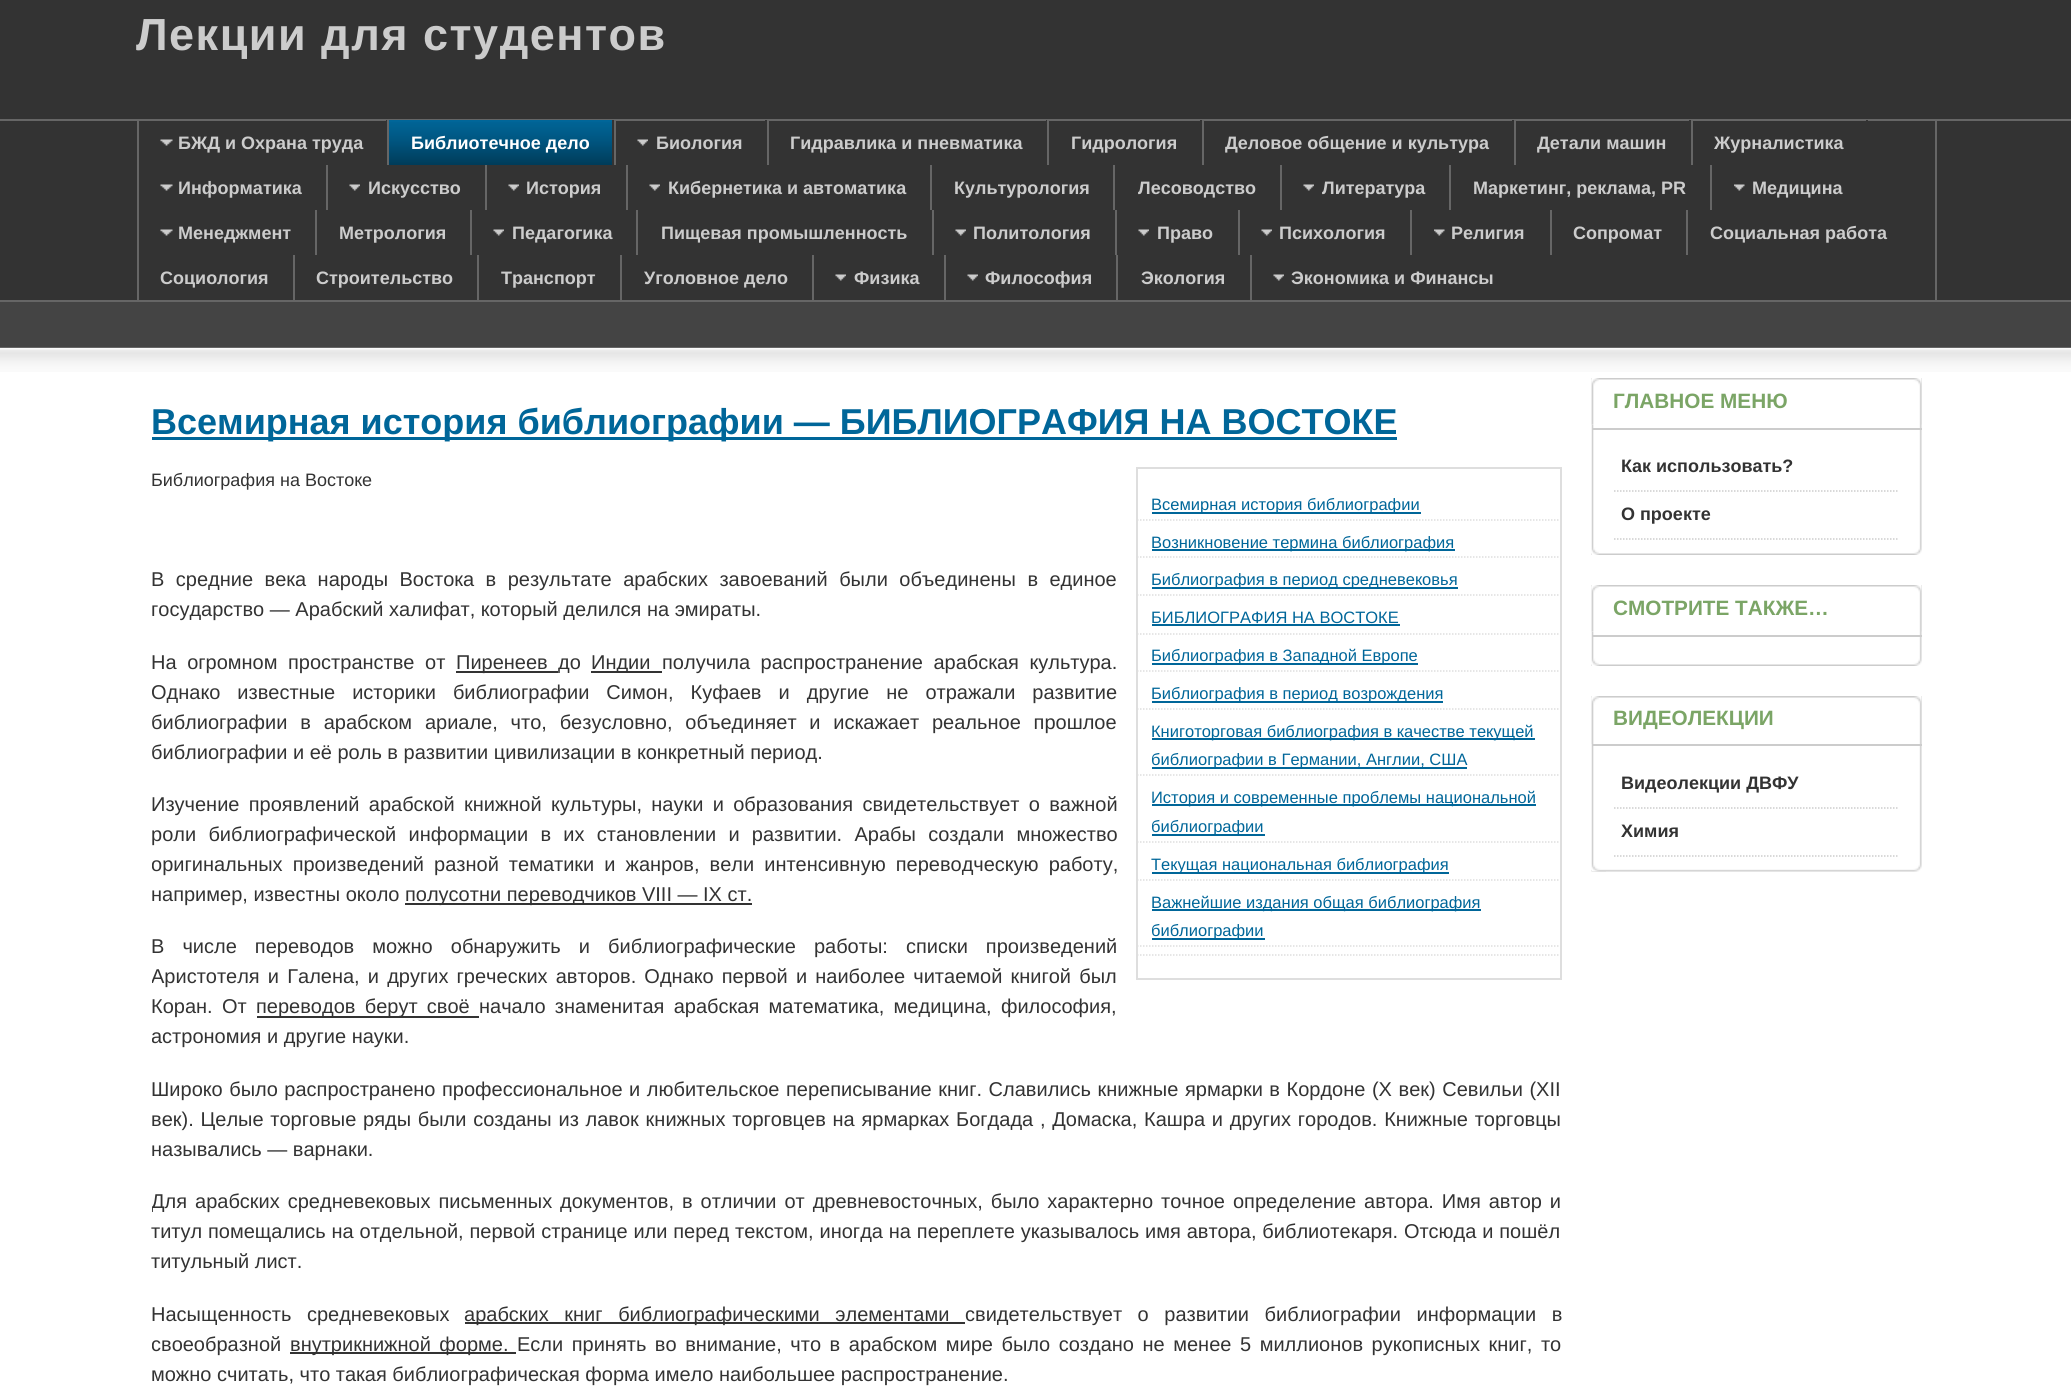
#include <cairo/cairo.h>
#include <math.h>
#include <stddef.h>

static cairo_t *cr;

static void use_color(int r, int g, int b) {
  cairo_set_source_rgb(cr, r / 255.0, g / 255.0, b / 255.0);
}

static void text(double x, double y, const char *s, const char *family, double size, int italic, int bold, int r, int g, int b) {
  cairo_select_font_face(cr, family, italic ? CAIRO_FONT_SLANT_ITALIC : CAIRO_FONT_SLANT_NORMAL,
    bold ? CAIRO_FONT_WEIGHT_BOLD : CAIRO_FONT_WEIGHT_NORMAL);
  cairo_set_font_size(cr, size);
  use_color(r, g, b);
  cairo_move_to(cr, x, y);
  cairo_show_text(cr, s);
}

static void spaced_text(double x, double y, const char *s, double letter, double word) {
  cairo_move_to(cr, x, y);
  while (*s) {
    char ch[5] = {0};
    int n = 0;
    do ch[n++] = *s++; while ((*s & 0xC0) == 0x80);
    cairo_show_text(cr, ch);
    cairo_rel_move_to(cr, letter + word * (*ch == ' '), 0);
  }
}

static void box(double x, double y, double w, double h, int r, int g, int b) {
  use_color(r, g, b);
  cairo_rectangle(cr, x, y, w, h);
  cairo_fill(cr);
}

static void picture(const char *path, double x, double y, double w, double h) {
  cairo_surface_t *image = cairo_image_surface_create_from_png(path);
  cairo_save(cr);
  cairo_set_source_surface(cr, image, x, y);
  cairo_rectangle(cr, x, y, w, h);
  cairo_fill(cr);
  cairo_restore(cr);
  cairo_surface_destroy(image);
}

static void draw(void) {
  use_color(68, 68, 68);
  cairo_paint(cr);
  box(0, 0, 2071, 119, 51, 51, 51);
  box(0, 121, 2071, 179, 51, 51, 51);
  box(0, 119, 2071, 2, 102, 102, 102);
  box(1935, 120, 2, 180, 102, 102, 102);
  box(386, 120, 1, 1, 51, 51, 51);
  box(137, 120, 2, 180, 102, 102, 102);
  picture("img_01.png", 160, 139, 13, 7);
  box(389, 120, 223, 45, 0, 102, 153);
  picture("img_02.png", 389, 122, 223, 43);
  box(612, 120, 2, 1, 51, 51, 51);
  box(387, 120, 2, 45, 102, 102, 102);
  box(765, 120, 2, 1, 51, 51, 51);
  box(614, 120, 2, 45, 102, 102, 102);
  picture("img_03.png", 637, 139, 11, 7);
  box(1046, 120, 1, 1, 51, 51, 51);
  box(767, 120, 2, 45, 102, 102, 102);
  box(1200, 120, 2, 1, 51, 51, 51);
  box(1047, 120, 2, 45, 102, 102, 102);
  box(1512, 120, 2, 1, 51, 51, 51);
  box(1202, 120, 2, 45, 102, 102, 102);
  box(1689, 120, 2, 1, 51, 51, 51);
  box(1514, 120, 2, 45, 102, 102, 102);
  box(1866, 120, 2, 1, 51, 51, 51);
  box(1691, 120, 2, 45, 102, 102, 102);
  picture("img_01.png", 160, 184, 13, 7);
  box(326, 165, 2, 45, 102, 102, 102);
  picture("img_04.png", 349, 184, 11, 7);
  box(485, 165, 2, 45, 102, 102, 102);
  picture("img_04.png", 508, 184, 11, 7);
  box(626, 165, 2, 45, 102, 102, 102);
  picture("img_03.png", 649, 184, 11, 7);
  box(930, 165, 2, 45, 102, 102, 102);
  box(1113, 165, 2, 45, 102, 102, 102);
  box(1280, 165, 2, 45, 102, 102, 102);
  picture("img_03.png", 1303, 184, 11, 7);
  box(1449, 165, 2, 45, 102, 102, 102);
  box(1710, 165, 2, 45, 102, 102, 102);
  picture("img_05.png", 1734, 184, 11, 7);
  picture("img_01.png", 160, 229, 13, 7);
  box(315, 210, 2, 45, 102, 102, 102);
  box(470, 210, 2, 45, 102, 102, 102);
  picture("img_04.png", 493, 229, 11, 7);
  box(636, 210, 2, 45, 102, 102, 102);
  box(932, 210, 2, 45, 102, 102, 102);
  picture("img_04.png", 955, 229, 11, 7);
  box(1115, 210, 2, 45, 102, 102, 102);
  picture("img_03.png", 1138, 229, 11, 7);
  box(1238, 210, 2, 45, 102, 102, 102);
  picture("img_04.png", 1261, 229, 11, 7);
  box(1410, 210, 2, 45, 102, 102, 102);
  picture("img_05.png", 1434, 229, 11, 7);
  box(1550, 210, 2, 45, 102, 102, 102);
  box(1686, 210, 2, 45, 102, 102, 102);
  box(293, 255, 2, 45, 102, 102, 102);
  box(477, 255, 2, 45, 102, 102, 102);
  box(620, 255, 2, 45, 102, 102, 102);
  box(812, 255, 2, 45, 102, 102, 102);
  picture("img_04.png", 835, 274, 11, 7);
  box(944, 255, 2, 45, 102, 102, 102);
  picture("img_04.png", 967, 274, 11, 7);
  box(1116, 255, 2, 45, 102, 102, 102);
  box(1250, 255, 2, 45, 102, 102, 102);
  picture("img_06.png", 1273, 274, 11, 7);
  box(0, 300, 2071, 2, 102, 102, 102);
  box(0, 347, 2071, 1, 102, 102, 102);
  box(0, 372, 2071, 1017, 255, 255, 255);
  picture("img_07.png", 0, 348, 2071, 24);
  box(152, 437, 1245, 3, 0, 102, 153);
  cairo_rectangle(cr, 1137, 468, 424, 511);
  use_color(222, 222, 222);
  cairo_stroke(cr);
  cairo_new_path(cr);
  cairo_move_to(cr, 1137, 520);
  cairo_line_to(cr, 1560, 520);
  cairo_set_line_width(cr, 1.5);
  cairo_set_dash(cr, (double[]){1.5, 1.5}, 2, 0);
  cairo_stroke(cr);
  box(1152, 512, 269, 2, 0, 102, 153);
  cairo_new_path(cr);
  cairo_move_to(cr, 1137, 557);
  cairo_line_to(cr, 1560, 557);
  use_color(222, 222, 222);
  cairo_stroke(cr);
  box(1152, 549, 303, 2, 0, 102, 153);
  cairo_new_path(cr);
  cairo_move_to(cr, 1137, 595);
  cairo_line_to(cr, 1560, 595);
  use_color(222, 222, 222);
  cairo_stroke(cr);
  box(1152, 587, 306, 2, 0, 102, 153);
  cairo_new_path(cr);
  cairo_move_to(cr, 1137, 634);
  cairo_line_to(cr, 1560, 634);
  use_color(222, 222, 222);
  cairo_stroke(cr);
  box(1152, 624, 248, 2, 0, 102, 153);
  cairo_new_path(cr);
  cairo_move_to(cr, 1137, 671);
  cairo_line_to(cr, 1560, 671);
  use_color(222, 222, 222);
  cairo_stroke(cr);
  box(1152, 663, 266, 2, 0, 102, 153);
  cairo_new_path(cr);
  cairo_move_to(cr, 1137, 709);
  cairo_line_to(cr, 1560, 709);
  use_color(222, 222, 222);
  cairo_stroke(cr);
  box(1152, 701, 291, 2, 0, 102, 153);
  cairo_new_path(cr);
  cairo_move_to(cr, 1137, 775);
  cairo_line_to(cr, 1560, 775);
  use_color(222, 222, 222);
  cairo_stroke(cr);
  box(1152, 738, 383, 2, 0, 102, 153);
  box(1152, 767, 315, 2, 0, 102, 153);
  cairo_new_path(cr);
  cairo_move_to(cr, 1137, 842);
  cairo_line_to(cr, 1560, 842);
  use_color(222, 222, 222);
  cairo_stroke(cr);
  box(1152, 804, 384, 2, 0, 102, 153);
  box(1152, 834, 113, 2, 0, 102, 153);
  cairo_new_path(cr);
  cairo_move_to(cr, 1137, 880);
  cairo_line_to(cr, 1560, 880);
  use_color(222, 222, 222);
  cairo_stroke(cr);
  box(1152, 872, 297, 2, 0, 102, 153);
  cairo_new_path(cr);
  cairo_move_to(cr, 1137, 946);
  cairo_line_to(cr, 1560, 946);
  use_color(222, 222, 222);
  cairo_stroke(cr);
  box(1152, 909, 329, 2, 0, 102, 153);
  box(1152, 938, 113, 2, 0, 102, 153);
  cairo_new_path(cr);
  cairo_move_to(cr, 1137, 955);
  cairo_line_to(cr, 1560, 955);
  use_color(222, 222, 222);
  cairo_stroke(cr);
  box(456, 671, 102, 2, 51, 51, 51);
  box(591, 671, 71, 2, 51, 51, 51);
  box(405, 903, 347, 2, 51, 51, 51);
  box(257, 1016, 222, 2, 51, 51, 51);
  box(465, 1322, 500, 2, 51, 51, 51);
  box(290, 1352, 226, 2, 51, 51, 51);
  picture("img_08.png", 1591, 378, 331, 177);
  picture("img_09.png", 1591, 378, 8, 177);
  picture("img_10.png", 1591, 378, 331, 47);
  picture("img_11.png", 1591, 378, 8, 47);
  box(1592, 428, 330, 2, 204, 204, 204);
  cairo_new_path(cr);
  cairo_move_to(cr, 1614, 491);
  cairo_line_to(cr, 1899, 491);
  cairo_stroke(cr);
  cairo_new_path(cr);
  cairo_move_to(cr, 1614, 539);
  cairo_line_to(cr, 1899, 539);
  cairo_stroke(cr);
  picture("img_12.png", 1591, 585, 331, 81);
  picture("img_13.png", 1591, 585, 8, 81);
  picture("img_10.png", 1591, 585, 331, 47);
  picture("img_11.png", 1591, 585, 8, 47);
  box(1592, 635, 330, 2, 204, 204, 204);
  picture("img_14.png", 1591, 696, 331, 176);
  picture("img_15.png", 1591, 696, 15, 176);
  picture("img_16.png", 1591, 696, 331, 48);
  picture("img_17.png", 1591, 696, 8, 48);
  box(1592, 744, 330, 2, 204, 204, 204);
  cairo_new_path(cr);
  cairo_move_to(cr, 1614, 808);
  cairo_line_to(cr, 1899, 808);
  cairo_stroke(cr);
  cairo_new_path(cr);
  cairo_move_to(cr, 1614, 856);
  cairo_line_to(cr, 1899, 856);
  cairo_stroke(cr);
  cairo_select_font_face(cr, "Liberation Sans", CAIRO_FONT_SLANT_NORMAL, CAIRO_FONT_WEIGHT_BOLD);
  cairo_set_font_size(cr, 45);
  spaced_text(136, 50, "Лекции для студентов", 1.5, 0);
  text(178, 149, "БЖД и Охрана труда", "Liberation Sans", 18, 0, 1, 204, 204, 204);
  text(411, 149, "Библиотечное дело", "Liberation Sans", 18, 0, 1, 255, 255, 255);
  text(656, 149, "Биология", "Liberation Sans", 18, 0, 1, 204, 204, 204);
  text(790, 149, "Гидравлика и пневматика", "Liberation Sans", 18, 0, 1, 204, 204, 204);
  text(1071, 149, "Гидрология", "Liberation Sans", 18, 0, 1, 204, 204, 204);
  text(1225, 149, "Деловое общение и культура", "Liberation Sans", 18, 0, 1, 204, 204, 204);
  text(1537, 149, "Детали машин", "Liberation Sans", 18, 0, 1, 204, 204, 204);
  text(1714, 149, "Журналистика", "Liberation Sans", 18, 0, 1, 204, 204, 204);
  text(178, 194, "Информатика", "Liberation Sans", 18, 0, 1, 204, 204, 204);
  text(368, 194, "Искусство", "Liberation Sans", 18, 0, 1, 204, 204, 204);
  text(526, 194, "История", "Liberation Sans", 18, 0, 1, 204, 204, 204);
  text(668, 194, "Кибернетика и автоматика", "Liberation Sans", 18, 0, 1, 204, 204, 204);
  text(954, 194, "Культурология", "Liberation Sans", 18, 0, 1, 204, 204, 204);
  text(1138, 194, "Лесоводство", "Liberation Sans", 18, 0, 1, 204, 204, 204);
  text(1322, 194, "Литература", "Liberation Sans", 18, 0, 1, 204, 204, 204);
  text(1473, 194, "Маркетинг, реклама, PR", "Liberation Sans", 18, 0, 1, 204, 204, 204);
  text(1752, 194, "Медицина", "Liberation Sans", 18, 0, 1, 204, 204, 204);
  text(178, 239, "Менеджмент", "Liberation Sans", 18, 0, 1, 204, 204, 204);
  text(339, 239, "Метрология", "Liberation Sans", 18, 0, 1, 204, 204, 204);
  text(512, 239, "Педагогика", "Liberation Sans", 18, 0, 1, 204, 204, 204);
  text(661, 239, "Пищевая промышленность", "Liberation Sans", 18, 0, 1, 204, 204, 204);
  text(973, 239, "Политология", "Liberation Sans", 18, 0, 1, 204, 204, 204);
  text(1157, 239, "Право", "Liberation Sans", 18, 0, 1, 204, 204, 204);
  text(1279, 239, "Психология", "Liberation Sans", 18, 0, 1, 204, 204, 204);
  text(1451, 239, "Религия", "Liberation Sans", 18, 0, 1, 204, 204, 204);
  text(1573, 239, "Сопромат", "Liberation Sans", 18, 0, 1, 204, 204, 204);
  text(1710, 239, "Социальная работа", "Liberation Sans", 18, 0, 1, 204, 204, 204);
  text(160, 284, "Социология", "Liberation Sans", 18, 0, 1, 204, 204, 204);
  text(316, 284, "Строительство", "Liberation Sans", 18, 0, 1, 204, 204, 204);
  text(501, 284, "Транспорт", "Liberation Sans", 18, 0, 1, 204, 204, 204);
  text(644, 284, "Уголовное дело", "Liberation Sans", 18, 0, 1, 204, 204, 204);
  text(854, 284, "Физика", "Liberation Sans", 18, 0, 1, 204, 204, 204);
  text(985, 284, "Философия", "Liberation Sans", 18, 0, 1, 204, 204, 204);
  text(1141, 284, "Экология", "Liberation Sans", 18, 0, 1, 204, 204, 204);
  text(1291, 284, "Экономика и Финансы", "Liberation Sans", 18, 0, 1, 204, 204, 204);
  text(151, 434, "Всемирная история библиографии — БИБЛИОГРАФИЯ НА ВОСТОКЕ", "Liberation Sans", 36, 0, 1, 0, 102, 153);
  text(151, 486, "Библиография на Востоке", "Liberation Sans", 18, 0, 0, 51, 51, 51);
  cairo_set_font_size(cr, 20);
  spaced_text(151, 586, "В средние века народы Востока в результате арабских завоеваний были объединены в единое", 0, 5.9);
  text(151, 616, "государство — Арабский халифат, который делился на эмираты.", "Liberation Sans", 20, 0, 0, 51, 51, 51);
  text(1151, 510, "Всемирная история библиографии", "Liberation Sans", 16.5, 0, 0, 0, 102, 153);
  text(1151, 548, "Возникновение термина библиография", "Liberation Sans", 16.5, 0, 0, 0, 102, 153);
  text(1151, 585, "Библиография в период средневековья", "Liberation Sans", 16.5, 0, 0, 0, 102, 153);
  text(1151, 623, "БИБЛИОГРАФИЯ НА ВОСТОКЕ", "Liberation Sans", 16.5, 0, 0, 0, 102, 153);
  text(1151, 661, "Библиография в Западной Европе", "Liberation Sans", 16.5, 0, 0, 0, 102, 153);
  text(1151, 699, "Библиография в период возрождения", "Liberation Sans", 16.5, 0, 0, 0, 102, 153);
  text(1151, 737, "Книготорговая библиография в качестве текущей", "Liberation Sans", 16.5, 0, 0, 0, 102, 153);
  text(1151, 765, "библиографии в Германии, Англии, США", "Liberation Sans", 16.5, 0, 0, 0, 102, 153);
  text(1151, 803, "История и современные проблемы национальной", "Liberation Sans", 16.5, 0, 0, 0, 102, 153);
  text(1151, 832, "библиографии", "Liberation Sans", 16.5, 0, 0, 0, 102, 153);
  text(1151, 870, "Текущая национальная библиография", "Liberation Sans", 16.5, 0, 0, 0, 102, 153);
  text(1151, 908, "Важнейшие издания общая библиография", "Liberation Sans", 16.5, 0, 0, 0, 102, 153);
  text(1151, 936, "библиографии", "Liberation Sans", 16.5, 0, 0, 0, 102, 153);
  cairo_set_font_size(cr, 20);
  use_color(51, 51, 51);
  spaced_text(151, 669, "На огромном пространстве от", 0, 5);
  text(456, 669, "Пиренеев", "Liberation Sans", 20, 0, 0, 51, 51, 51);
  text(558, 669, "до", "Liberation Sans", 20, 0, 0, 51, 51, 51);
  text(591, 669, "Индии", "Liberation Sans", 20, 0, 0, 51, 51, 51);
  spaced_text(662, 669, "получила распространение арабская культура.", 0, 5);
  cairo_save(cr);
  cairo_rectangle(cr, 152, 378, 1410, 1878);
  cairo_clip(cr);
  spaced_text(151, 699, "Однако известные историки библиографии Симон, Куфаев и другие не отражали развитие", 0, 11.5);
  cairo_restore(cr);
  spaced_text(151, 729, "библиографии в арабском ариале, что, безусловно, объединяет и искажает реальное прошлое", 0, 7.25);
  text(151, 759, "библиографии и её роль в развитии цивилизации в конкретный период.", "Liberation Sans", 20, 0, 0, 51, 51, 51);
  spaced_text(151, 811, "Изучение проявлений арабской книжной культуры, науки и образования свидетельствует о важной", 0, 3.75);
  spaced_text(151, 841, "роли библиографической информации в их становлении и развитии. Арабы создали множество", 0, 6.75);
  cairo_save(cr);
  cairo_rectangle(cr, 152, 378, 1410, 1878);
  cairo_clip(cr);
  spaced_text(151, 871, "оригинальных произведений разной тематики и жанров, вели интенсивную переводческую работу,", 0, 4.5);
  cairo_restore(cr);
  text(151, 901, "например, известны около", "Liberation Sans", 20, 0, 0, 51, 51, 51);
  text(405, 901, "полусотни переводчиков VIII — IX ст.", "Liberation Sans", 20, 0, 0, 51, 51, 51);
  spaced_text(151, 953, "В числе переводов можно обнаружить и библиографические работы: списки произведений", 0, 12.5);
  cairo_save(cr);
  cairo_rectangle(cr, 152, 378, 1410, 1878);
  cairo_clip(cr);
  spaced_text(151, 983, "Аристотеля и Галена, и других греческих авторов. Однако первой и наиболее читаемой книгой был", 0, 2.6);
  cairo_restore(cr);
  spaced_text(151, 1013, "Коран. От", 0, 3.75);
  spaced_text(256, 1013, "переводов берут своё", 0, 3.75);
  spaced_text(479, 1013, "начало знаменитая арабская математика, медицина, философия,", 0, 3.75);
  cairo_save(cr);
  cairo_rectangle(cr, 152, 378, 1410, 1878);
  cairo_clip(cr);
  text(151, 1043, "астрономия и другие науки.", "Liberation Sans", 20, 0, 0, 51, 51, 51);
  cairo_restore(cr);
  spaced_text(151, 1096, "Широко было распространено профессиональное и любительское переписывание книг. Славились книжные ярмарки в Кордоне (X век) Севильи (XII", 0, 1);
  spaced_text(151, 1126, "век). Целые торговые ряды были созданы из лавок книжных торговцев на ярмарках Богдада , Домаска, Кашра и других городов. Книжные торговцы", 0, 1.2);
  text(151, 1156, "назывались — варнаки.", "Liberation Sans", 20, 0, 0, 51, 51, 51);
  cairo_save(cr);
  cairo_rectangle(cr, 152, 378, 1410, 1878);
  cairo_clip(cr);
  spaced_text(151, 1208, "Для арабских средневековых письменных документов, в отличии от древневосточных, было характерно точное определение автора. Имя автор и", 0, 2.4);
  cairo_restore(cr);
  spaced_text(151, 1238, "титул помещались на отдельной, первой странице или перед текстом, иногда на переплете указывалось имя автора, библиотекаря. Отсюда и пошёл", 0, 0.3);
  text(151, 1268, "титульный лист.", "Liberation Sans", 20, 0, 0, 51, 51, 51);
  spaced_text(151, 1321, "Насыщенность средневековых", 0, 10);
  spaced_text(464, 1321, "арабских книг библиографическими элементами", 0, 10);
  spaced_text(965, 1321, "свидетельствует о развитии библиографии информации в", 0, 10);
  cairo_save(cr);
  cairo_rectangle(cr, 152, 378, 1410, 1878);
  cairo_clip(cr);
  text(151, 1351, "своеобразной", "Liberation Sans", 20, 0, 0, 51, 51, 51);
  cairo_restore(cr);
  spaced_text(290, 1351, "внутрикнижной форме.", 0, 3);
  spaced_text(517, 1351, "Если принять во внимание, что в арабском мире было создано не менее 5 миллионов рукописных книг, то", 0, 3);
  text(151, 1381, "можно считать, что такая библиографическая форма имело наибольшее распространение.", "Liberation Sans", 20, 0, 0, 51, 51, 51);
  text(1613, 408, "ГЛАВНОЕ МЕНЮ", "Liberation Sans", 20.75, 0, 1, 123, 165, 102);
  text(1621, 472, "Как использовать?", "Liberation Sans", 18, 0, 1, 51, 51, 51);
  text(1621, 520, "О проекте", "Liberation Sans", 18, 0, 1, 51, 51, 51);
  text(1613, 615, "СМОТРИТЕ ТАКЖЕ…", "Liberation Sans", 20.75, 0, 1, 123, 165, 102);
  text(1613, 725, "ВИДЕОЛЕКЦИИ", "Liberation Sans", 20.75, 0, 1, 123, 165, 102);
  text(1621, 789, "Видеолекции ДВФУ", "Liberation Sans", 18, 0, 1, 51, 51, 51);
  text(1621, 837, "Химия", "Liberation Sans", 18, 0, 1, 51, 51, 51);
}

int main(void) {
  cairo_surface_t *surface = cairo_image_surface_create(CAIRO_FORMAT_RGB24, 2071, 1389);
  cr = cairo_create(surface);
  cairo_font_options_t *options = cairo_font_options_create();
  cairo_font_options_set_hint_metrics(options, CAIRO_HINT_METRICS_OFF);
  cairo_font_options_set_hint_style(options, CAIRO_HINT_STYLE_NONE);
  cairo_set_font_options(cr, options);
  cairo_set_miter_limit(cr, 4);
  draw();
  cairo_surface_write_to_png(surface, "out.png");
  cairo_font_options_destroy(options);
  cairo_destroy(cr);
  cairo_surface_destroy(surface);
  return 0;
}
